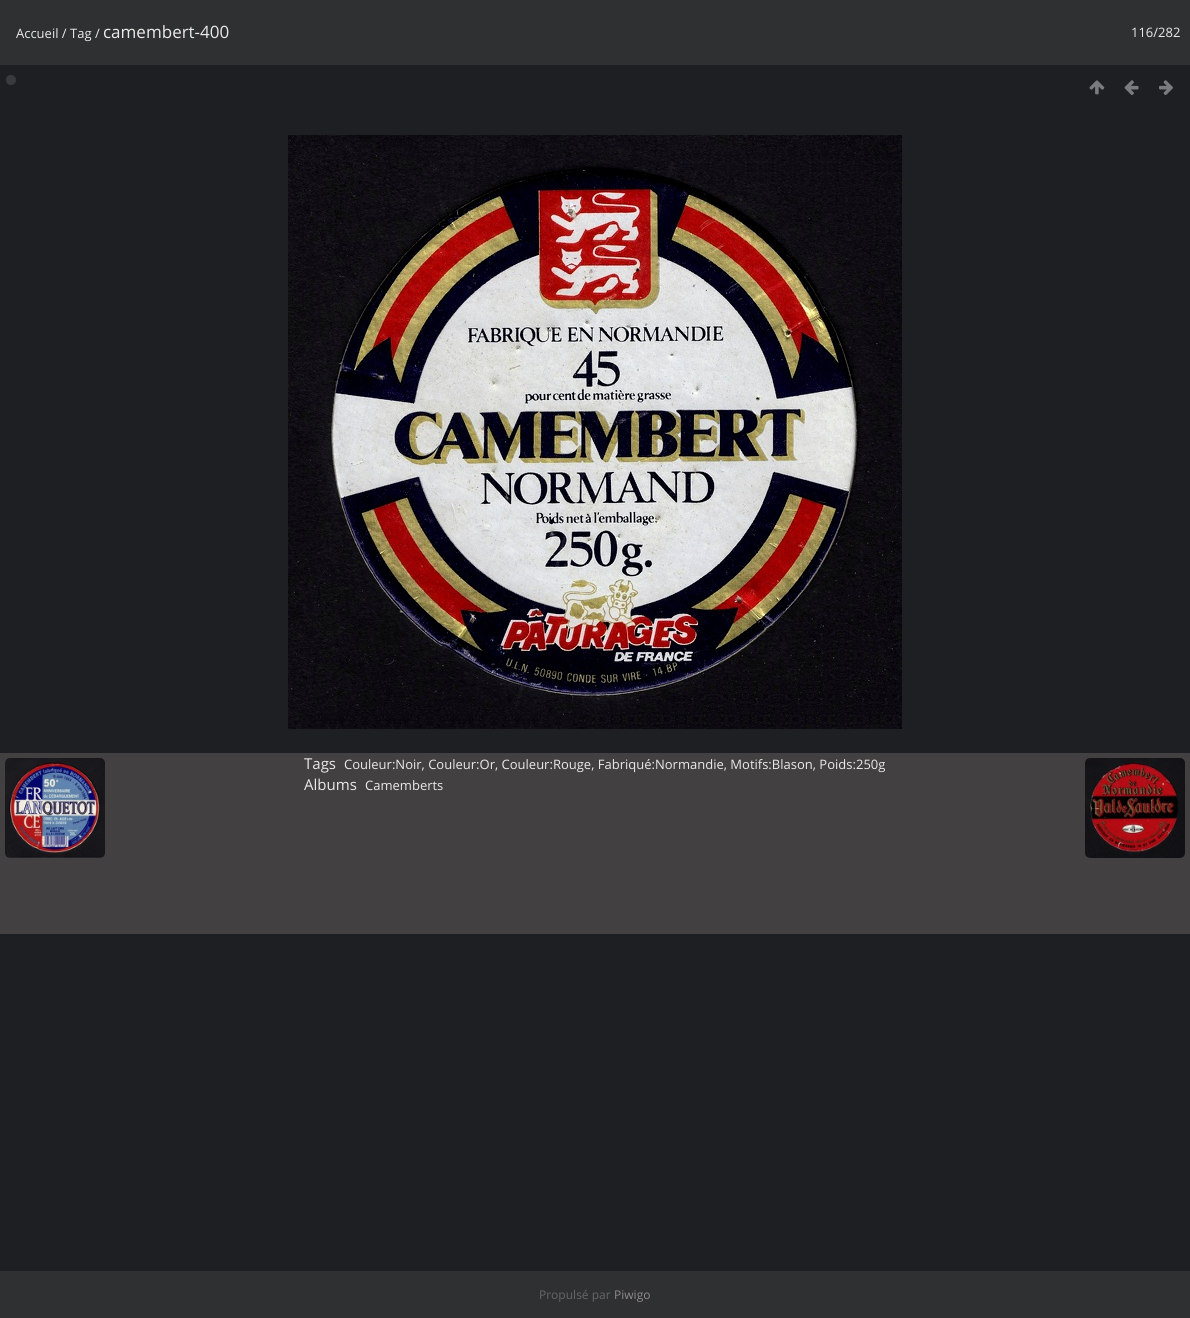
#include <cairo/cairo.h>
#include <math.h>
#include <stddef.h>

static cairo_t *cr;

static void use_color(int r, int g, int b) {
  cairo_set_source_rgb(cr, r / 255.0, g / 255.0, b / 255.0);
}

static void text(double x, double y, const char *s, const char *family, double size, int italic, int bold, int r, int g, int b) {
  cairo_select_font_face(cr, family, italic ? CAIRO_FONT_SLANT_ITALIC : CAIRO_FONT_SLANT_NORMAL,
    bold ? CAIRO_FONT_WEIGHT_BOLD : CAIRO_FONT_WEIGHT_NORMAL);
  cairo_set_font_size(cr, size);
  use_color(r, g, b);
  cairo_move_to(cr, x, y);
  cairo_show_text(cr, s);
}

static void box(double x, double y, double w, double h, int r, int g, int b) {
  use_color(r, g, b);
  cairo_rectangle(cr, x, y, w, h);
  cairo_fill(cr);
}

static void picture(const char *path, double x, double y, double w, double h) {
  cairo_surface_t *image = cairo_image_surface_create_from_png(path);
  cairo_save(cr);
  cairo_set_source_surface(cr, image, x, y);
  cairo_rectangle(cr, x, y, w, h);
  cairo_fill(cr);
  cairo_restore(cr);
  cairo_surface_destroy(image);
}

static void draw(void) {
  use_color(30, 31, 35);
  cairo_paint(cr);
  box(0, 0, 1190, 65, 47, 48, 50);
  use_color(57, 58, 61);
  cairo_arc(cr, 11, 80, 5, 0, 2 * M_PI);
  cairo_fill(cr);
  picture("img_01.png", 1089, 80, 16, 15);
  picture("img_02.png", 1124, 80, 15, 15);
  picture("img_03.png", 1159, 80, 14, 15);
  picture("img_04.png", 288, 135, 614, 594);
  box(0, 753, 1190, 181, 66, 64, 64);
  picture("img_05.png", 5, 758, 100, 100);
  picture("img_06.png", 1085, 758, 100, 100);
  box(0, 1271, 1190, 47, 47, 48, 50);
  text(16, 38, "Accueil / Tag /", "Open Sans", 13, 0, 0, 234, 234, 233);
  text(103, 38, "camembert-400", "Open Sans", 17, 0, 0, 234, 234, 233);
  text(1131, 37, "116/282", "Open Sans", 13, 0, 0, 234, 234, 233);
  text(304, 769, "Tags", "Open Sans", 15, 0, 0, 234, 234, 233);
  text(344, 769, "Couleur:Noir, Couleur:Or, Couleur:Rouge, Fabriqué:Normandie, Motifs:Blason, Poids:250g", "Open Sans", 13, 0, 0, 234, 234, 233);
  text(304, 790, "Albums", "Open Sans", 15, 0, 0, 234, 234, 233);
  text(365, 790, "Camemberts", "Open Sans", 13, 0, 0, 234, 234, 233);
  text(539, 1299, "Propulsé par", "Open Sans", 12, 0, 0, 102, 102, 102);
  text(614, 1299, "Piwigo", "Open Sans", 12, 0, 0, 141, 139, 139);
}

int main(void) {
  cairo_surface_t *surface = cairo_image_surface_create(CAIRO_FORMAT_RGB24, 1190, 1318);
  cr = cairo_create(surface);
  cairo_font_options_t *options = cairo_font_options_create();
  cairo_font_options_set_hint_metrics(options, CAIRO_HINT_METRICS_OFF);
  cairo_font_options_set_hint_style(options, CAIRO_HINT_STYLE_NONE);
  cairo_set_font_options(cr, options);
  cairo_set_miter_limit(cr, 4);
  draw();
  cairo_surface_write_to_png(surface, "out.png");
  cairo_font_options_destroy(options);
  cairo_destroy(cr);
  cairo_surface_destroy(surface);
  return 0;
}
